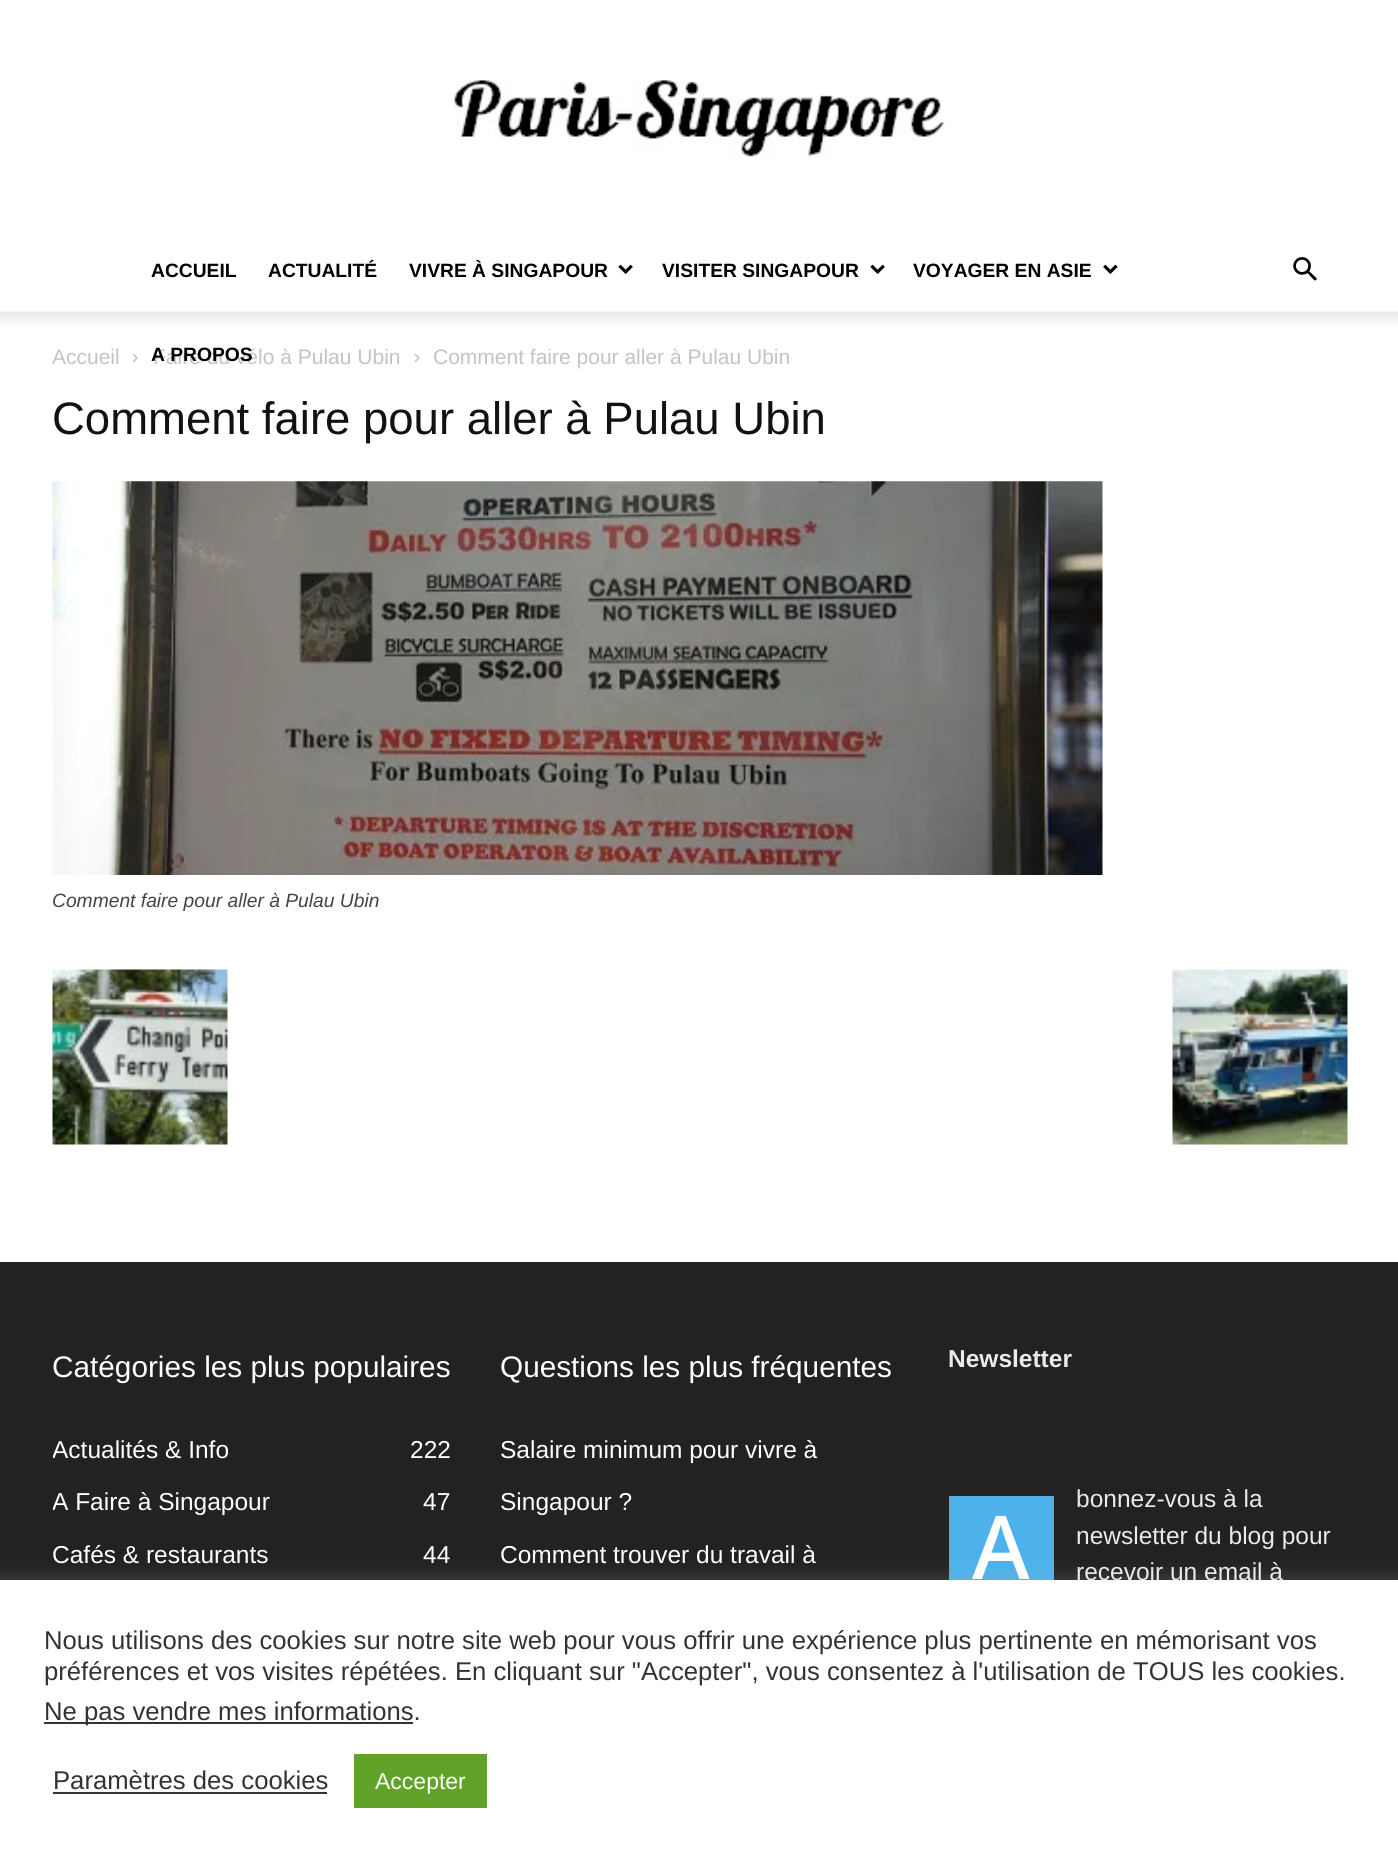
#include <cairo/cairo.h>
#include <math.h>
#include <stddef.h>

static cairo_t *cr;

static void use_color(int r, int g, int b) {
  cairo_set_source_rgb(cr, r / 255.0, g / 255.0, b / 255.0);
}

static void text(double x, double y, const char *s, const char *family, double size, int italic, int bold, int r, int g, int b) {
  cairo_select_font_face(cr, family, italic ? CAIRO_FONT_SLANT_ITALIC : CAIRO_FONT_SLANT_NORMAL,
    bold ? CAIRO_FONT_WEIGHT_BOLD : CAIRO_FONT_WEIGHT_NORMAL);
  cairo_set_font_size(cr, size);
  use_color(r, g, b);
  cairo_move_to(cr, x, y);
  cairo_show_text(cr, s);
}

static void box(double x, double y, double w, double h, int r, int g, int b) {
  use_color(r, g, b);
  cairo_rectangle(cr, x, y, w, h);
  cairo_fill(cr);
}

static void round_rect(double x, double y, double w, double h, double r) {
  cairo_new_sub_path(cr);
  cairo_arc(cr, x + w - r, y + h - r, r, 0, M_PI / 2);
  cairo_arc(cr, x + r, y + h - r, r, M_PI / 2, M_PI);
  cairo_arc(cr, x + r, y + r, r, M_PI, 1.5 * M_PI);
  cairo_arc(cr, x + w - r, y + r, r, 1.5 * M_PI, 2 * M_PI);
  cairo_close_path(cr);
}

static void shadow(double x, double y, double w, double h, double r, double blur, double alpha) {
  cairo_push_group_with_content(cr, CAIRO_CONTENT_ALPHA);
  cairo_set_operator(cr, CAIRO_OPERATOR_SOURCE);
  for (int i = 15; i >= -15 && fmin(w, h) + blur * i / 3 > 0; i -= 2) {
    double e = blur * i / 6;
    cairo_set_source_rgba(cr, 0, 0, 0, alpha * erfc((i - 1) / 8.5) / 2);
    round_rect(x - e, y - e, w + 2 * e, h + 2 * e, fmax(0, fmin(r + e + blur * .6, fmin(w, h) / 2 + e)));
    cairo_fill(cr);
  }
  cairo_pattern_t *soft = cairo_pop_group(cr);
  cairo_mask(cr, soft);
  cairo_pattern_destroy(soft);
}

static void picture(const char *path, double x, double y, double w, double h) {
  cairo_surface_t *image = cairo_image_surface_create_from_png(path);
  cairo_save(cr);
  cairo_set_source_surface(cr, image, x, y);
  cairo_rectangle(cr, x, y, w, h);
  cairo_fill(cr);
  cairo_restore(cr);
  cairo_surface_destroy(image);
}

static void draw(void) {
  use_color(255, 255, 255);
  cairo_paint(cr);
  picture("img_01.png", 454, 80, 491, 81);
  picture("img_02.png", 618, 264, 15, 10);
  picture("img_02.png", 870, 264, 15, 10);
  picture("img_03.png", 1103, 264, 15, 10);
  picture("img_04.png", 1293, 257, 24, 24);
  picture("img_05.png", 0, 311, 1398, 15);
  picture("img_06.png", 133, 354, 5, 8);
  picture("img_07.png", 414, 354, 6, 8);
  picture("img_08.png", 52, 481, 1051, 394);
  picture("img_09.png", 52, 969, 176, 176);
  picture("img_10.png", 1172, 969, 176, 176);
  box(0, 1262, 1398, 318, 34, 34, 34);
  box(949, 1496, 105, 84, 77, 178, 236);
  use_color(172, 171, 171);
  shadow(0, 1579, 1398, 280, 0, 9, 0.3);
  text(151, 277, "ACCUEIL", "Liberation Sans", 19.25, 0, 1, 0, 0, 0);
  text(268, 277, "ACTUALITÉ", "Liberation Sans", 19.25, 0, 1, 0, 0, 0);
  text(409, 277, "VIVRE À SINGAPOUR", "Liberation Sans", 19.25, 0, 1, 0, 0, 0);
  text(662, 277, "VISITER SINGAPOUR", "Liberation Sans", 19.25, 0, 1, 0, 0, 0);
  text(913, 277, "VOYAGER EN ASIE", "Liberation Sans", 19.25, 0, 1, 0, 0, 0);
  text(52, 364, "Accueil", "Liberation Sans", 21, 0, 0, 195, 195, 195);
  text(153, 364, "Faire du vélo à Pulau Ubin", "Liberation Sans", 21, 0, 0, 195, 195, 195);
  text(151, 361, "A PROPOS", "Liberation Sans", 19.25, 0, 1, 0, 0, 0);
  text(433, 364, "Comment faire pour aller à Pulau Ubin", "Liberation Sans", 21, 0, 0, 195, 195, 195);
  text(52, 434, "Comment faire pour aller à Pulau Ubin", "Liberation Sans", 45.5, 0, 0, 17, 17, 17);
  text(52, 907, "Comment faire pour aller à Pulau Ubin", "Liberation Sans", 19.25, 1, 0, 68, 68, 68);
  text(52, 1377, "Catégories les plus populaires", "Liberation Sans", 29.75, 0, 0, 255, 255, 255);
  cairo_save(cr);
  cairo_rectangle(cr, 53, 1341, 399, 397);
  cairo_clip(cr);
  text(52, 1458, "Actualités & Info", "Liberation Sans", 24.5, 0, 0, 255, 255, 255);
  cairo_restore(cr);
  text(410, 1458, "222", "Liberation Sans", 24.5, 0, 0, 255, 255, 255);
  cairo_save(cr);
  cairo_rectangle(cr, 53, 1341, 399, 397);
  cairo_clip(cr);
  text(52, 1510, "A Faire à Singapour", "Liberation Sans", 24.5, 0, 0, 255, 255, 255);
  cairo_restore(cr);
  text(423, 1510, "47", "Liberation Sans", 24.5, 0, 0, 255, 255, 255);
  text(52, 1563, "Cafés & restaurants", "Liberation Sans", 24.5, 0, 0, 255, 255, 255);
  text(423, 1563, "44", "Liberation Sans", 24.5, 0, 0, 255, 255, 255);
  text(500, 1377, "Questions les plus fréquentes", "Liberation Sans", 29.75, 0, 0, 255, 255, 255);
  text(500, 1458, "Salaire minimum pour vivre à", "Liberation Sans", 24.5, 0, 0, 255, 255, 255);
  text(500, 1510, "Singapour ?", "Liberation Sans", 24.5, 0, 0, 255, 255, 255);
  text(500, 1563, "Comment trouver du travail à", "Liberation Sans", 24.5, 0, 0, 255, 255, 255);
  text(948, 1367, "Newsletter", "Liberation Sans", 24.5, 0, 1, 234, 234, 234);
  text(1076, 1507, "bonnez-vous à la", "Liberation Sans", 24.5, 0, 0, 234, 234, 234);
  text(972, 1579, "A", "Noto Sans Medium", 88, 0, 0, 255, 255, 255);
  text(1076, 1544, "newsletter du blog pour", "Liberation Sans", 24.5, 0, 0, 234, 234, 234);
  text(1076, 1580, "recevoir un email à", "Liberation Sans", 24.5, 0, 0, 234, 234, 234);
  box(0, 1580, 1398, 280, 255, 255, 255);
  text(44, 1649, "Nous utilisons des cookies sur notre site web pour vous offrir une expérience plus pertinente en mémorisant vos", "Liberation Sans", 25.67, 0, 0, 51, 51, 51);
  text(44, 1680, "préférences et vos visites répétées. En cliquant sur \"Accepter\", vous consentez à l'utilisation de TOUS les cookies.", "Liberation Sans", 25.67, 0, 0, 51, 51, 51);
  box(44, 1722, 369, 2, 51, 51, 51);
  text(44, 1720, "Ne pas vendre mes informations.", "Liberation Sans", 25.67, 0, 0, 51, 51, 51);
  text(53, 1789, "Paramètres des cookies", "Liberation Sans", 25.67, 0, 0, 51, 51, 51);
  box(53, 1792, 274, 2, 51, 51, 51);
  box(354, 1754, 133, 54, 97, 162, 41);
  text(375, 1789, "Accepter", "Liberation Sans", 23, 0, 0, 255, 255, 255);
}

int main(void) {
  cairo_surface_t *surface = cairo_image_surface_create(CAIRO_FORMAT_RGB24, 1398, 1860);
  cr = cairo_create(surface);
  cairo_font_options_t *options = cairo_font_options_create();
  cairo_font_options_set_hint_metrics(options, CAIRO_HINT_METRICS_OFF);
  cairo_font_options_set_hint_style(options, CAIRO_HINT_STYLE_NONE);
  cairo_set_font_options(cr, options);
  cairo_set_miter_limit(cr, 4);
  draw();
  cairo_surface_write_to_png(surface, "out.png");
  cairo_font_options_destroy(options);
  cairo_destroy(cr);
  cairo_surface_destroy(surface);
  return 0;
}
